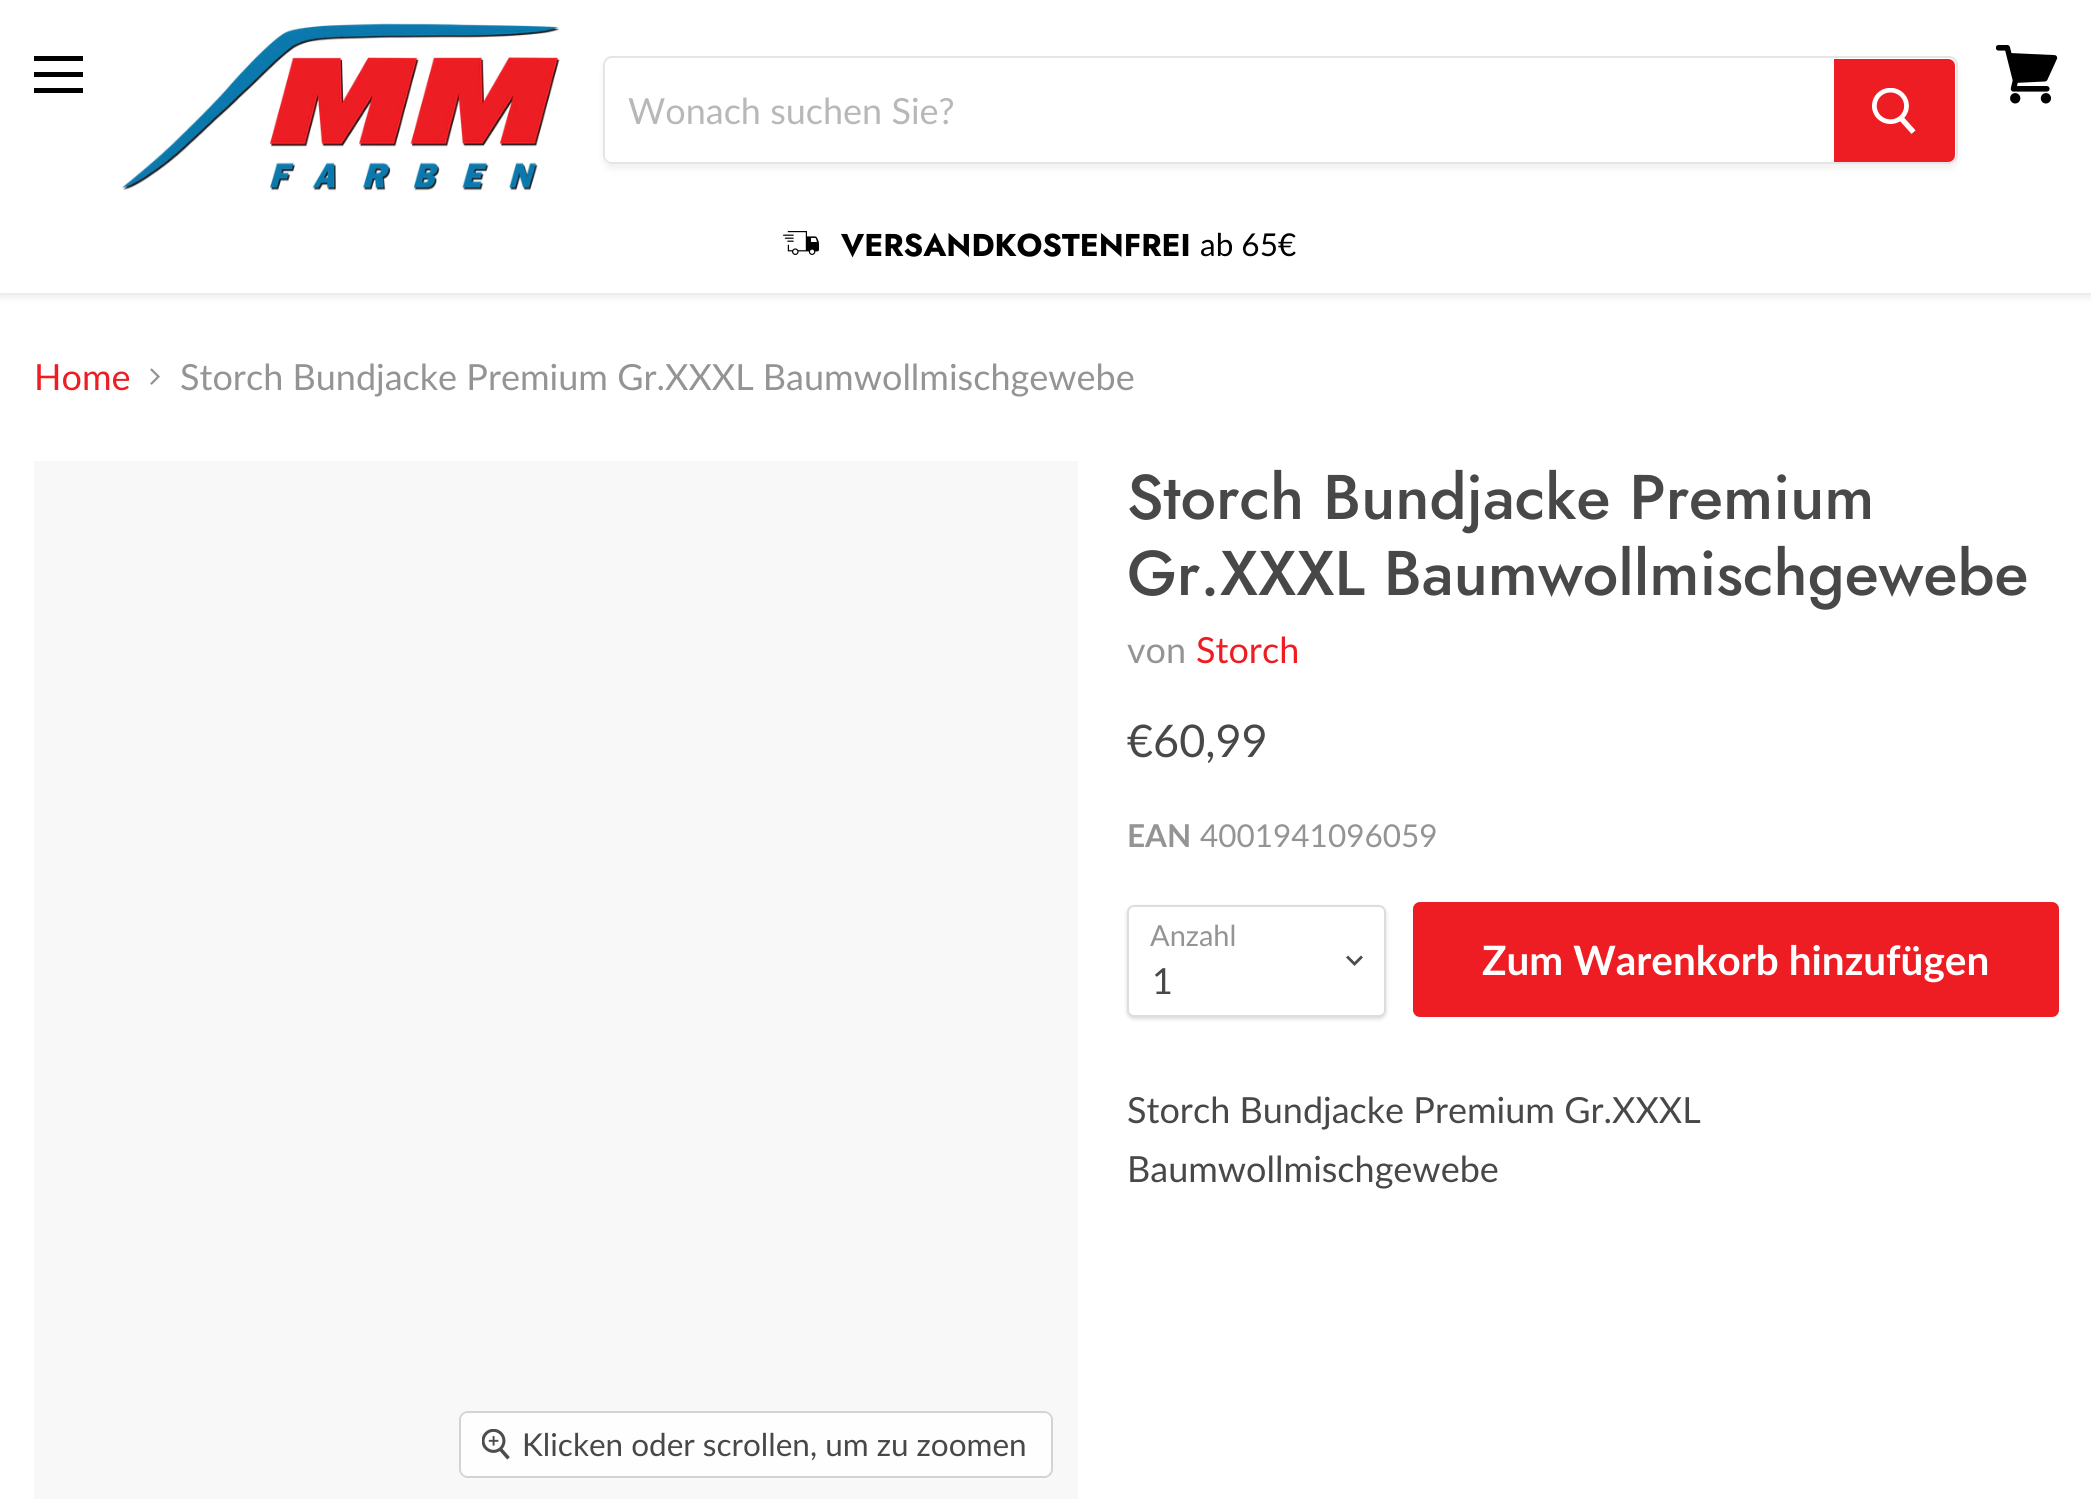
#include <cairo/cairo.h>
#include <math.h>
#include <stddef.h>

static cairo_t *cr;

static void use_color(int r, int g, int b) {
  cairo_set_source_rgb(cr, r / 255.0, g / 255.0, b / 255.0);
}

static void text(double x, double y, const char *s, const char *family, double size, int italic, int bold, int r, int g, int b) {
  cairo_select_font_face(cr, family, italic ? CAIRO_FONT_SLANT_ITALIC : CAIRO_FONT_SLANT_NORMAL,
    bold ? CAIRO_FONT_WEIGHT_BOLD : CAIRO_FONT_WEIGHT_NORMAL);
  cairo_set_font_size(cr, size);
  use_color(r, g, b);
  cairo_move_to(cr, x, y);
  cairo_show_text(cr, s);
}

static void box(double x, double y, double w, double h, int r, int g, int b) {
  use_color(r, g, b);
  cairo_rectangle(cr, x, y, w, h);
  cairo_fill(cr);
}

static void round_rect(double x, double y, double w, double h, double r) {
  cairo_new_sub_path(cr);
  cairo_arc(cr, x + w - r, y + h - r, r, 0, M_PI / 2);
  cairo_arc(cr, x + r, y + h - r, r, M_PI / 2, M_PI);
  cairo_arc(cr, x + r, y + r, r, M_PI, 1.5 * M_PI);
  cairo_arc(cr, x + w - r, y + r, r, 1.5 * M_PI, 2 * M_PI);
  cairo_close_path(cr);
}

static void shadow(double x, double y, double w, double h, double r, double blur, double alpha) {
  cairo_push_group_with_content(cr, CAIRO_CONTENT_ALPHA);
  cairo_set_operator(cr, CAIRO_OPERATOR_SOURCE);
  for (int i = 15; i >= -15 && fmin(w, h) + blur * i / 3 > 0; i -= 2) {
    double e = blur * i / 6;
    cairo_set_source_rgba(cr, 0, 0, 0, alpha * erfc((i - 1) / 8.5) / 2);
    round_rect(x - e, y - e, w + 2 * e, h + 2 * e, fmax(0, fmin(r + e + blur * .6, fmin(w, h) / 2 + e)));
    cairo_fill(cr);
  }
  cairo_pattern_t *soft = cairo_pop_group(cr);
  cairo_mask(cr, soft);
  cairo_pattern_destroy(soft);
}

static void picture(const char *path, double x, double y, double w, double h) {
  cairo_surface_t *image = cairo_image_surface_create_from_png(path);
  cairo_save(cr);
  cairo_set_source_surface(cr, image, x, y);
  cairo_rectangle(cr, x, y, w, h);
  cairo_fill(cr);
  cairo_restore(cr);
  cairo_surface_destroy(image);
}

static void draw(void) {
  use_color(255, 255, 255);
  cairo_paint(cr);
  use_color(128, 128, 128);
  shadow(0, 2, 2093, 293, 0, 4.5, 0.25);
  box(0, 0, 2091, 293, 255, 255, 255);
  box(34, 56, 49, 5, 0, 0, 0);
  box(34, 72, 49, 5, 0, 0, 0);
  box(34, 88, 49, 5, 0, 0, 0);
  picture("img_01.png", 1996, 45, 62, 59);
  picture("img_02.png", 122, 23, 438, 168);
  cairo_save(cr);
  cairo_set_fill_rule(cr, CAIRO_FILL_RULE_EVEN_ODD);
  cairo_new_path(cr);
  cairo_move_to(cr, 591, 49);
  cairo_line_to(cr, 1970, 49);
  cairo_line_to(cr, 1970, 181);
  cairo_line_to(cr, 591, 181);
  cairo_close_path(cr);
  cairo_move_to(cr, 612, 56);
  cairo_line_to(cr, 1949, 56);
  cairo_curve_to(cr, 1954, 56, 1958, 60, 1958, 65);
  cairo_line_to(cr, 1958, 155);
  cairo_curve_to(cr, 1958, 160, 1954, 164, 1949, 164);
  cairo_line_to(cr, 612, 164);
  cairo_curve_to(cr, 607, 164, 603, 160, 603, 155);
  cairo_line_to(cr, 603, 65);
  cairo_curve_to(cr, 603, 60, 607, 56, 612, 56);
  cairo_close_path(cr);
  cairo_clip(cr);
  use_color(128, 128, 128);
  shadow(603, 61, 1355, 108, 9, 3.5, 0.11);
  cairo_restore(cr);
  round_rect(604, 57, 1353, 106, 8);
  cairo_set_source_rgba(cr, 0.502, 0.502, 0.502, 0.2);
  cairo_stroke(cr);
  use_color(255, 255, 255);
  cairo_new_path(cr);
  cairo_move_to(cr, 612, 59);
  cairo_line_to(cr, 1834, 59);
  cairo_line_to(cr, 1834, 162);
  cairo_line_to(cr, 612, 162);
  cairo_curve_to(cr, 608, 162, 605, 159, 605, 155);
  cairo_line_to(cr, 605, 66);
  cairo_curve_to(cr, 605, 62, 608, 59, 612, 59);
  cairo_close_path(cr);
  cairo_fill(cr);
  use_color(238, 29, 35);
  cairo_new_path(cr);
  cairo_move_to(cr, 1835, 60);
  cairo_line_to(cr, 1948, 60);
  cairo_curve_to(cr, 1951.5, 60, 1954, 62.5, 1954, 66);
  cairo_line_to(cr, 1954, 155);
  cairo_curve_to(cr, 1954, 158.5, 1951.5, 161, 1948, 161);
  cairo_line_to(cr, 1835, 161);
  cairo_close_path(cr);
  cairo_fill_preserve(cr);
  cairo_stroke(cr);
  picture("img_03.png", 1872, 88, 44, 46);
  picture("img_04.png", 783, 231, 36, 24);
  picture("img_05.png", 150, 368, 10, 17);
  use_color(0, 0, 0);
  shadow(1127, 907, 259, 112, 7, 2, 0.15);
  use_color(255, 255, 255);
  round_rect(1128, 906, 257, 110, 6);
  cairo_fill_preserve(cr);
  use_color(221, 221, 221);
  cairo_stroke(cr);
  cairo_new_path(cr);
  cairo_move_to(cr, 1354.5, 964);
  cairo_line_to(cr, 1361, 957.5);
  cairo_move_to(cr, 1354.5, 964);
  cairo_line_to(cr, 1348, 957.5);
  use_color(77, 77, 77);
  cairo_set_line_width(cr, 2.8);
  cairo_set_line_cap(cr, CAIRO_LINE_CAP_SQUARE);
  cairo_stroke(cr);
  use_color(238, 29, 35);
  round_rect(1414, 903, 644, 113, 6);
  cairo_fill_preserve(cr);
  cairo_set_line_width(cr, 2);
  cairo_set_line_cap(cr, CAIRO_LINE_CAP_BUTT);
  cairo_stroke(cr);
  box(34, 461, 1044, 1038, 248, 248, 248);
  round_rect(460, 1412, 592, 65, 8);
  use_color(211, 211, 211);
  cairo_stroke(cr);
  cairo_set_source_rgba(cr, 1, 1, 1, 0.9);
  round_rect(461, 1413, 590, 63, 7);
  cairo_fill(cr);
  picture("img_06.png", 482, 1429, 28, 31);
  text(628, 124, "Wonach suchen Sie?", "Lato", 36, 0, 0, 184, 184, 184);
  text(841, 256, "VERSANDKOSTENFREI", "Jost", 31.5, 0, 1, 0, 0, 0);
  text(1200, 256, "ab 65€", "Lato", 31.5, 0, 0, 0, 0, 0);
  text(34, 390, "Home", "Lato", 36, 0, 0, 238, 29, 35);
  text(180, 390, "Storch Bundjacke Premium Gr.XXXL Baumwollmischgewebe", "Lato", 36, 0, 0, 148, 148, 148);
  text(1127, 519, "Storch Bundjacke Premium", "Jost Medium", 63, 0, 0, 72, 72, 72);
  text(1127, 595, "Gr.XXXL Baumwollmischgewebe", "Jost Medium", 63, 0, 0, 72, 72, 72);
  text(1127, 663, "von", "Lato", 36, 0, 0, 148, 148, 148);
  text(1196, 663, "Storch", "Lato", 36, 0, 0, 238, 29, 35);
  text(1127, 757, "€60,99", "Lato", 45, 0, 0, 72, 72, 72);
  text(1127, 847, "EAN", "Lato", 31.5, 0, 1, 148, 148, 148);
  text(1200, 847, "4001941096059", "Lato", 31.5, 0, 0, 148, 148, 148);
  text(1150, 946, "Anzahl", "Lato", 29, 0, 0, 148, 148, 148);
  text(1152, 994, "1", "Lato", 36, 0, 0, 72, 72, 72);
  text(1482, 975, "Zum Warenkorb hinzufügen", "Lato", 40.5, 0, 1, 255, 255, 255);
  text(1127, 1123, "Storch Bundjacke Premium Gr.XXXL", "Lato", 36, 0, 0, 72, 72, 72);
  text(1127, 1182, "Baumwollmischgewebe", "Lato", 36, 0, 0, 72, 72, 72);
  text(522, 1456, "Klicken oder scrollen, um zu zoomen", "Lato", 31.5, 0, 0, 72, 72, 72);
}

int main(void) {
  cairo_surface_t *surface = cairo_image_surface_create(CAIRO_FORMAT_RGB24, 2091, 1499);
  cr = cairo_create(surface);
  cairo_font_options_t *options = cairo_font_options_create();
  cairo_font_options_set_hint_metrics(options, CAIRO_HINT_METRICS_OFF);
  cairo_font_options_set_hint_style(options, CAIRO_HINT_STYLE_NONE);
  cairo_set_font_options(cr, options);
  cairo_set_miter_limit(cr, 4);
  draw();
  cairo_surface_write_to_png(surface, "out.png");
  cairo_font_options_destroy(options);
  cairo_destroy(cr);
  cairo_surface_destroy(surface);
  return 0;
}
